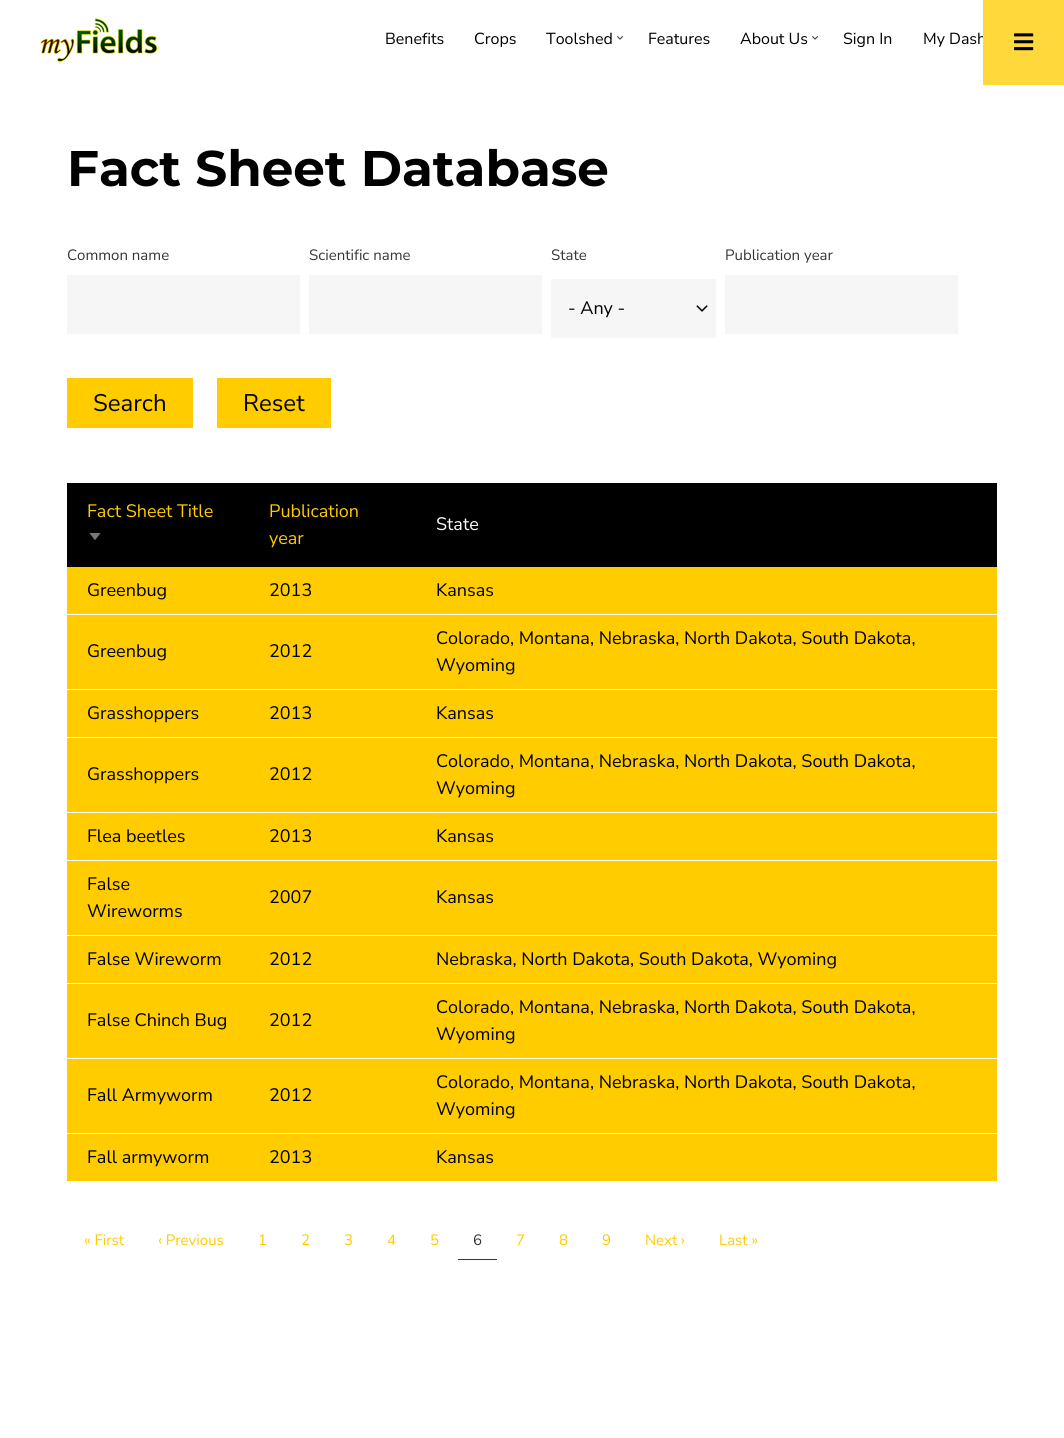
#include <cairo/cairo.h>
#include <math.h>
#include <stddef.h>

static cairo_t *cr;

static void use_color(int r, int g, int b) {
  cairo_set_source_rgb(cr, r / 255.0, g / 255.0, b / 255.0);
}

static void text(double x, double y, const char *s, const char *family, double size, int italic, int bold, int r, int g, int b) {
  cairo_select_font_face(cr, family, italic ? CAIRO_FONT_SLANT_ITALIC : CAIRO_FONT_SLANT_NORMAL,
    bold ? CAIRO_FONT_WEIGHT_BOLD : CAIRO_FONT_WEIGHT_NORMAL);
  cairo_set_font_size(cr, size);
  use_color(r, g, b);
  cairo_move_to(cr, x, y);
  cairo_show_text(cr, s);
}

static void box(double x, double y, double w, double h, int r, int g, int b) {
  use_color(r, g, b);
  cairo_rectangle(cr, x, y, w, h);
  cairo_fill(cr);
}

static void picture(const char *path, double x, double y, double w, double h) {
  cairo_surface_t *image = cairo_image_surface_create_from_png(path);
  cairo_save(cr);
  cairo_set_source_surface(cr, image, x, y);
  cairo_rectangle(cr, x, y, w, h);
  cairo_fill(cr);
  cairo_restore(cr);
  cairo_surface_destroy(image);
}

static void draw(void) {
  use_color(255, 255, 255);
  cairo_paint(cr);
  picture("img_01.png", 40, 17, 119, 47);
  picture("img_02.png", 617, 36, 6, 4);
  picture("img_02.png", 812, 36, 6, 4);
  box(67, 275, 233, 59, 246, 246, 246);
  box(309, 275, 233, 59, 246, 246, 246);
  box(551, 279, 165, 59, 246, 246, 246);
  picture("img_03.png", 696, 305, 12, 7);
  box(725, 275, 233, 59, 246, 246, 246);
  box(67, 378, 126, 50, 255, 204, 0);
  box(217, 378, 114, 50, 255, 204, 0);
  box(67, 483, 930, 84, 0, 0, 0);
  picture("img_04.png", 89, 533, 12, 7);
  box(67, 567, 930, 47, 255, 204, 0);
  box(67, 615, 930, 74, 255, 204, 0);
  box(67, 690, 930, 47, 255, 204, 0);
  box(67, 738, 930, 74, 255, 204, 0);
  box(67, 813, 930, 47, 255, 204, 0);
  box(67, 861, 930, 74, 255, 204, 0);
  box(67, 936, 930, 47, 255, 204, 0);
  box(67, 984, 930, 74, 255, 204, 0);
  box(67, 1059, 930, 74, 255, 204, 0);
  box(67, 1134, 930, 47, 255, 204, 0);
  box(458, 1259, 39, 1, 54, 54, 54);
  text(385, 44, "Benefits", "Nunito Sans", 16, 0, 0, 0, 0, 0);
  text(474, 44, "Crops", "Nunito Sans", 16, 0, 0, 0, 0, 0);
  text(546, 44, "Toolshed", "Nunito Sans", 16, 0, 0, 0, 0, 0);
  text(648, 44, "Features", "Nunito Sans", 16, 0, 0, 0, 0, 0);
  text(740, 44, "About Us", "Nunito Sans", 16, 0, 0, 0, 0, 0);
  text(843, 44, "Sign In", "Nunito Sans", 16, 0, 0, 0, 0, 0);
  text(923, 44, "My Dash", "Nunito Sans", 16, 0, 0, 0, 0, 0);
  text(67, 186, "Fact Sheet Database", "Montserrat", 50, 0, 1, 0, 0, 0);
  text(67, 260, "Common name", "Nunito Sans", 15, 0, 0, 54, 54, 54);
  text(309, 260, "Scientific name", "Nunito Sans", 15, 0, 0, 54, 54, 54);
  text(551, 260, "State", "Nunito Sans", 15, 0, 0, 54, 54, 54);
  text(568, 314, "- Any -", "Nunito Sans", 18, 0, 0, 0, 0, 0);
  text(725, 260, "Publication year", "Nunito Sans", 15, 0, 0, 54, 54, 54);
  text(93, 411, "Search", "Nunito Sans", 24, 0, 0, 0, 0, 0);
  text(243, 411, "Reset", "Nunito Sans", 24, 0, 0, 0, 0, 0);
  text(87, 517, "Fact Sheet Title", "Nunito Sans", 18, 0, 0, 255, 204, 0);
  text(269, 517, "Publication", "Nunito Sans", 18, 0, 0, 255, 204, 0);
  text(269, 544, "year", "Nunito Sans", 18, 0, 0, 255, 204, 0);
  text(436, 530, "State", "Nunito Sans", 18, 0, 0, 255, 255, 255);
  text(87, 596, "Greenbug", "Nunito Sans", 18, 0, 0, 0, 0, 0);
  text(269, 596, "2013", "Nunito Sans", 18, 0, 0, 0, 0, 0);
  text(436, 596, "Kansas", "Nunito Sans", 18, 0, 0, 0, 0, 0);
  text(87, 657, "Greenbug", "Nunito Sans", 18, 0, 0, 0, 0, 0);
  text(269, 657, "2012", "Nunito Sans", 18, 0, 0, 0, 0, 0);
  text(436, 644, "Colorado, Montana, Nebraska, North Dakota, South Dakota,", "Nunito Sans", 18, 0, 0, 0, 0, 0);
  text(436, 671, "Wyoming", "Nunito Sans", 18, 0, 0, 0, 0, 0);
  text(87, 719, "Grasshoppers", "Nunito Sans", 18, 0, 0, 0, 0, 0);
  text(269, 719, "2013", "Nunito Sans", 18, 0, 0, 0, 0, 0);
  text(436, 719, "Kansas", "Nunito Sans", 18, 0, 0, 0, 0, 0);
  text(87, 780, "Grasshoppers", "Nunito Sans", 18, 0, 0, 0, 0, 0);
  text(269, 780, "2012", "Nunito Sans", 18, 0, 0, 0, 0, 0);
  text(436, 767, "Colorado, Montana, Nebraska, North Dakota, South Dakota,", "Nunito Sans", 18, 0, 0, 0, 0, 0);
  text(436, 794, "Wyoming", "Nunito Sans", 18, 0, 0, 0, 0, 0);
  text(87, 842, "Flea beetles", "Nunito Sans", 18, 0, 0, 0, 0, 0);
  text(269, 842, "2013", "Nunito Sans", 18, 0, 0, 0, 0, 0);
  text(436, 842, "Kansas", "Nunito Sans", 18, 0, 0, 0, 0, 0);
  text(87, 890, "False", "Nunito Sans", 18, 0, 0, 0, 0, 0);
  text(87, 917, "Wireworms", "Nunito Sans", 18, 0, 0, 0, 0, 0);
  text(269, 903, "2007", "Nunito Sans", 18, 0, 0, 0, 0, 0);
  text(436, 903, "Kansas", "Nunito Sans", 18, 0, 0, 0, 0, 0);
  text(87, 965, "False Wireworm", "Nunito Sans", 18, 0, 0, 0, 0, 0);
  text(269, 965, "2012", "Nunito Sans", 18, 0, 0, 0, 0, 0);
  text(436, 965, "Nebraska, North Dakota, South Dakota, Wyoming", "Nunito Sans", 18, 0, 0, 0, 0, 0);
  text(87, 1026, "False Chinch Bug", "Nunito Sans", 18, 0, 0, 0, 0, 0);
  text(269, 1026, "2012", "Nunito Sans", 18, 0, 0, 0, 0, 0);
  text(436, 1013, "Colorado, Montana, Nebraska, North Dakota, South Dakota,", "Nunito Sans", 18, 0, 0, 0, 0, 0);
  text(436, 1040, "Wyoming", "Nunito Sans", 18, 0, 0, 0, 0, 0);
  text(87, 1101, "Fall Armyworm", "Nunito Sans", 18, 0, 0, 0, 0, 0);
  text(269, 1101, "2012", "Nunito Sans", 18, 0, 0, 0, 0, 0);
  text(436, 1088, "Colorado, Montana, Nebraska, North Dakota, South Dakota,", "Nunito Sans", 18, 0, 0, 0, 0, 0);
  text(436, 1115, "Wyoming", "Nunito Sans", 18, 0, 0, 0, 0, 0);
  text(87, 1163, "Fall armyworm", "Nunito Sans", 18, 0, 0, 0, 0, 0);
  text(269, 1163, "2013", "Nunito Sans", 18, 0, 0, 0, 0, 0);
  text(436, 1163, "Kansas", "Nunito Sans", 18, 0, 0, 0, 0, 0);
  text(84, 1245, "« First", "Nunito Sans", 15, 0, 0, 255, 204, 0);
  text(158, 1245, "‹ Previous", "Nunito Sans", 15, 0, 0, 255, 204, 0);
  text(258, 1245, "1", "Nunito Sans", 15, 0, 0, 255, 204, 0);
  text(301, 1245, "2", "Nunito Sans", 15, 0, 0, 255, 204, 0);
  text(344, 1245, "3", "Nunito Sans", 15, 0, 0, 255, 204, 0);
  text(387, 1245, "4", "Nunito Sans", 15, 0, 0, 255, 204, 0);
  text(430, 1245, "5", "Nunito Sans", 15, 0, 0, 255, 204, 0);
  text(473, 1245, "6", "Nunito Sans", 15, 0, 0, 54, 54, 54);
  text(516, 1245, "7", "Nunito Sans", 15, 0, 0, 255, 204, 0);
  text(559, 1245, "8", "Nunito Sans", 15, 0, 0, 255, 204, 0);
  text(602, 1245, "9", "Nunito Sans", 15, 0, 0, 255, 204, 0);
  text(645, 1245, "Next ›", "Nunito Sans", 15, 0, 0, 255, 204, 0);
  text(719, 1245, "Last »", "Nunito Sans", 15, 0, 0, 255, 204, 0);
  box(983, 0, 81, 85, 255, 216, 60);
  picture("img_05.png", 1014, 33, 20, 18);
}

int main(void) {
  cairo_surface_t *surface = cairo_image_surface_create(CAIRO_FORMAT_RGB24, 1064, 1438);
  cr = cairo_create(surface);
  cairo_font_options_t *options = cairo_font_options_create();
  cairo_font_options_set_hint_metrics(options, CAIRO_HINT_METRICS_OFF);
  cairo_font_options_set_hint_style(options, CAIRO_HINT_STYLE_NONE);
  cairo_set_font_options(cr, options);
  cairo_set_miter_limit(cr, 4);
  draw();
  cairo_surface_write_to_png(surface, "out.png");
  cairo_font_options_destroy(options);
  cairo_destroy(cr);
  cairo_surface_destroy(surface);
  return 0;
}
